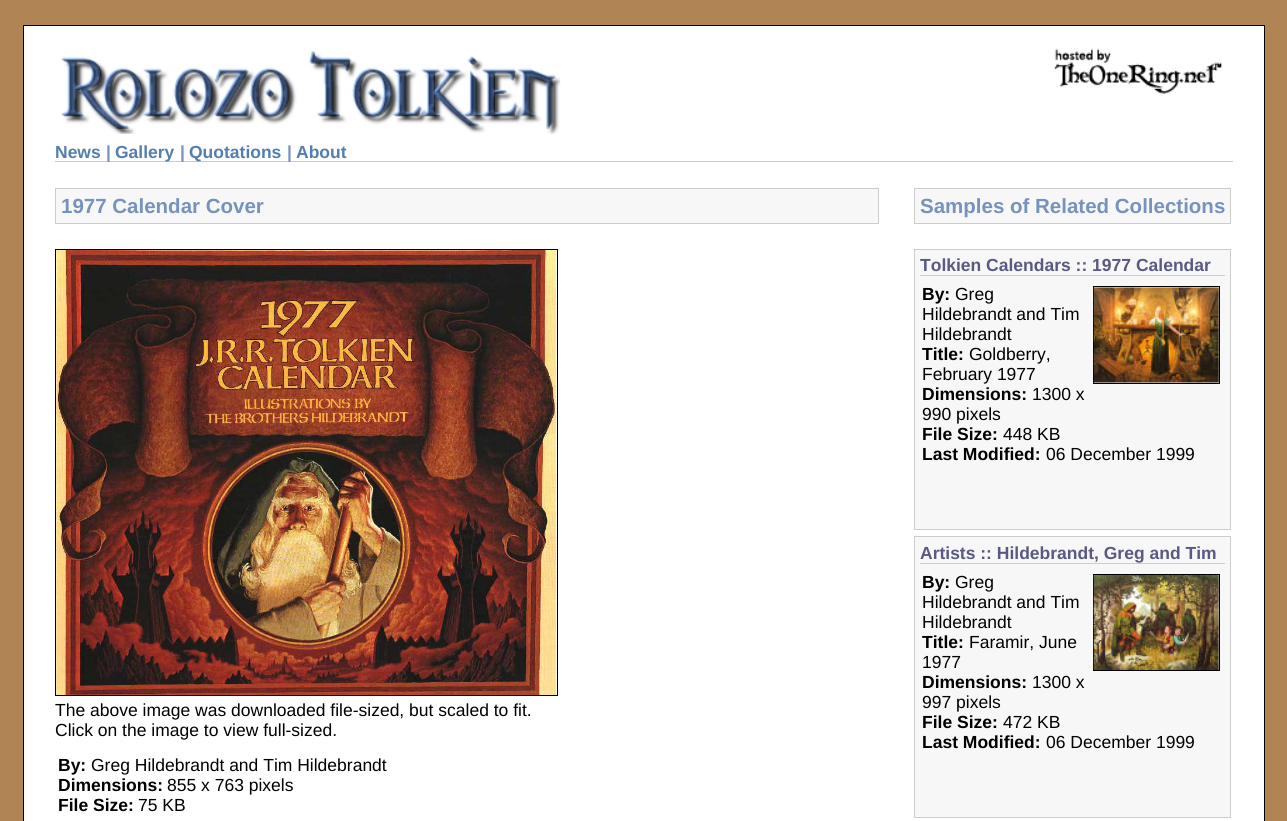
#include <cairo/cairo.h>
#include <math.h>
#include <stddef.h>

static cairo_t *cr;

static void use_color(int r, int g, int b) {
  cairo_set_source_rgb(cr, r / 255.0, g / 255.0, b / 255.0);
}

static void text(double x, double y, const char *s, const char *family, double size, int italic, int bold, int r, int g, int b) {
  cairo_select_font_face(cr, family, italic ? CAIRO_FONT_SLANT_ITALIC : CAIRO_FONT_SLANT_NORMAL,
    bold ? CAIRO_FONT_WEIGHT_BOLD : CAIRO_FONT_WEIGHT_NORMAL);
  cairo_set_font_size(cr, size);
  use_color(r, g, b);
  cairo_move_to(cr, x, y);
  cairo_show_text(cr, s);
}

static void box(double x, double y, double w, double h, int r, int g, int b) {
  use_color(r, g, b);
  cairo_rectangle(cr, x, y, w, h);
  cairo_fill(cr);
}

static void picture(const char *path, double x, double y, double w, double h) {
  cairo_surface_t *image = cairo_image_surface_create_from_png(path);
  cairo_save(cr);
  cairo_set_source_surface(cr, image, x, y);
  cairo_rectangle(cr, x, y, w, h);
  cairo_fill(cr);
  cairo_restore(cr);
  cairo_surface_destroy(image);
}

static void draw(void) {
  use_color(176, 133, 83);
  cairo_paint(cr);
  use_color(255, 255, 255);
  cairo_rectangle(cr, 23.5, 25.5, 1241, 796);
  cairo_fill_preserve(cr);
  use_color(0, 0, 0);
  cairo_set_line_width(cr, 1);
  cairo_stroke(cr);
  picture("img_01.png", 61, 50, 500, 84);
  picture("img_02.png", 1053, 48, 169, 46);
  box(55, 161, 1178, 1, 204, 204, 204);
  use_color(247, 247, 247);
  cairo_rectangle(cr, 55.5, 188.5, 823, 35);
  cairo_fill_preserve(cr);
  use_color(204, 204, 204);
  cairo_stroke(cr);
  cairo_rectangle(cr, 55.5, 249.5, 502, 446);
  use_color(0, 0, 0);
  cairo_stroke(cr);
  picture("img_03.png", 56, 250, 501, 445);
  use_color(247, 247, 247);
  cairo_rectangle(cr, 914.5, 188.5, 316, 35);
  cairo_fill_preserve(cr);
  use_color(204, 204, 204);
  cairo_stroke(cr);
  use_color(247, 247, 247);
  cairo_rectangle(cr, 914.5, 249.5, 316, 280);
  cairo_fill_preserve(cr);
  use_color(204, 204, 204);
  cairo_stroke(cr);
  box(920, 275, 305, 1, 204, 204, 204);
  cairo_rectangle(cr, 1093.5, 286.5, 126, 97);
  use_color(0, 0, 0);
  cairo_stroke(cr);
  picture("img_04.png", 1093, 287, 126, 96);
  use_color(247, 247, 247);
  cairo_rectangle(cr, 914.5, 536.5, 316, 281);
  cairo_fill_preserve(cr);
  use_color(204, 204, 204);
  cairo_stroke(cr);
  box(920, 563, 305, 1, 204, 204, 204);
  cairo_rectangle(cr, 1093.5, 574.5, 126, 96);
  use_color(0, 0, 0);
  cairo_stroke(cr);
  picture("img_05.png", 1093, 575, 126, 95);
  text(55, 158, "News", "Liberation Sans", 17.5, 0, 1, 83, 126, 176);
  text(106, 158, "|", "Liberation Sans", 17.5, 0, 1, 119, 146, 188);
  text(115, 158, "Gallery", "Liberation Sans", 17.5, 0, 1, 83, 126, 176);
  text(180, 158, "|", "Liberation Sans", 17.5, 0, 1, 119, 146, 188);
  text(189, 158, "Quotations", "Liberation Sans", 17.5, 0, 1, 83, 126, 176);
  text(287, 158, "|", "Liberation Sans", 17.5, 0, 1, 119, 146, 188);
  text(296, 158, "About", "Liberation Sans", 17.5, 0, 1, 83, 126, 176);
  text(61, 213, "1977 Calendar Cover", "Liberation Sans", 20.5, 0, 1, 119, 146, 188);
  text(55, 716, "The above image was downloaded file-sized, but scaled to fit.", "Liberation Sans", 17.5, 0, 0, 0, 0, 0);
  text(55, 736, "Click on the image to view full-sized.", "Liberation Sans", 17.5, 0, 0, 0, 0, 0);
  text(58, 771, "By:", "Liberation Sans", 17.5, 0, 1, 0, 0, 0);
  text(91, 771, "Greg Hildebrandt and Tim Hildebrandt", "Liberation Sans", 17.5, 0, 0, 0, 0, 0);
  text(58, 791, "Dimensions:", "Liberation Sans", 17.5, 0, 1, 0, 0, 0);
  text(167, 791, "855 x 763 pixels", "Liberation Sans", 17.5, 0, 0, 0, 0, 0);
  text(58, 811, "File Size:", "Liberation Sans", 17.5, 0, 1, 0, 0, 0);
  text(138, 811, "75 KB", "Liberation Sans", 17.5, 0, 0, 0, 0, 0);
  text(920, 213, "Samples of Related Collections", "Liberation Sans", 20.5, 0, 1, 119, 146, 188);
  text(920, 271, "Tolkien Calendars :: 1977 Calendar", "Liberation Sans", 17.5, 0, 1, 89, 89, 131);
  text(922, 300, "By:", "Liberation Sans", 17.5, 0, 1, 0, 0, 0);
  text(955, 300, "Greg", "Liberation Sans", 17.5, 0, 0, 0, 0, 0);
  text(922, 320, "Hildebrandt and Tim", "Liberation Sans", 17.5, 0, 0, 0, 0, 0);
  text(922, 340, "Hildebrandt", "Liberation Sans", 17.5, 0, 0, 0, 0, 0);
  text(922, 360, "Title:", "Liberation Sans", 17.5, 0, 1, 0, 0, 0);
  text(969, 360, "Goldberry,", "Liberation Sans", 17.5, 0, 0, 0, 0, 0);
  text(922, 380, "February 1977", "Liberation Sans", 17.5, 0, 0, 0, 0, 0);
  text(922, 400, "Dimensions:", "Liberation Sans", 17.5, 0, 1, 0, 0, 0);
  text(1032, 400, "1300 x", "Liberation Sans", 17.5, 0, 0, 0, 0, 0);
  text(922, 420, "990 pixels", "Liberation Sans", 17.5, 0, 0, 0, 0, 0);
  text(922, 440, "File Size:", "Liberation Sans", 17.5, 0, 1, 0, 0, 0);
  text(1003, 440, "448 KB", "Liberation Sans", 17.5, 0, 0, 0, 0, 0);
  text(922, 460, "Last Modified:", "Liberation Sans", 17.5, 0, 1, 0, 0, 0);
  text(1046, 460, "06 December 1999", "Liberation Sans", 17.5, 0, 0, 0, 0, 0);
  text(920, 559, "Artists :: Hildebrandt, Greg and Tim", "Liberation Sans", 17.5, 0, 1, 89, 89, 131);
  text(922, 588, "By:", "Liberation Sans", 17.5, 0, 1, 0, 0, 0);
  text(955, 588, "Greg", "Liberation Sans", 17.5, 0, 0, 0, 0, 0);
  text(922, 608, "Hildebrandt and Tim", "Liberation Sans", 17.5, 0, 0, 0, 0, 0);
  text(922, 628, "Hildebrandt", "Liberation Sans", 17.5, 0, 0, 0, 0, 0);
  text(922, 648, "Title:", "Liberation Sans", 17.5, 0, 1, 0, 0, 0);
  text(969, 648, "Faramir, June", "Liberation Sans", 17.5, 0, 0, 0, 0, 0);
  text(922, 668, "1977", "Liberation Sans", 17.5, 0, 0, 0, 0, 0);
  text(922, 688, "Dimensions:", "Liberation Sans", 17.5, 0, 1, 0, 0, 0);
  text(1032, 688, "1300 x", "Liberation Sans", 17.5, 0, 0, 0, 0, 0);
  text(922, 708, "997 pixels", "Liberation Sans", 17.5, 0, 0, 0, 0, 0);
  text(922, 728, "File Size:", "Liberation Sans", 17.5, 0, 1, 0, 0, 0);
  text(1003, 728, "472 KB", "Liberation Sans", 17.5, 0, 0, 0, 0, 0);
  text(922, 748, "Last Modified:", "Liberation Sans", 17.5, 0, 1, 0, 0, 0);
  text(1046, 748, "06 December 1999", "Liberation Sans", 17.5, 0, 0, 0, 0, 0);
}

int main(void) {
  cairo_surface_t *surface = cairo_image_surface_create(CAIRO_FORMAT_RGB24, 1287, 821);
  cr = cairo_create(surface);
  cairo_font_options_t *options = cairo_font_options_create();
  cairo_font_options_set_hint_metrics(options, CAIRO_HINT_METRICS_OFF);
  cairo_font_options_set_hint_style(options, CAIRO_HINT_STYLE_NONE);
  cairo_set_font_options(cr, options);
  cairo_set_miter_limit(cr, 4);
  draw();
  cairo_surface_write_to_png(surface, "out.png");
  cairo_font_options_destroy(options);
  cairo_destroy(cr);
  cairo_surface_destroy(surface);
  return 0;
}
